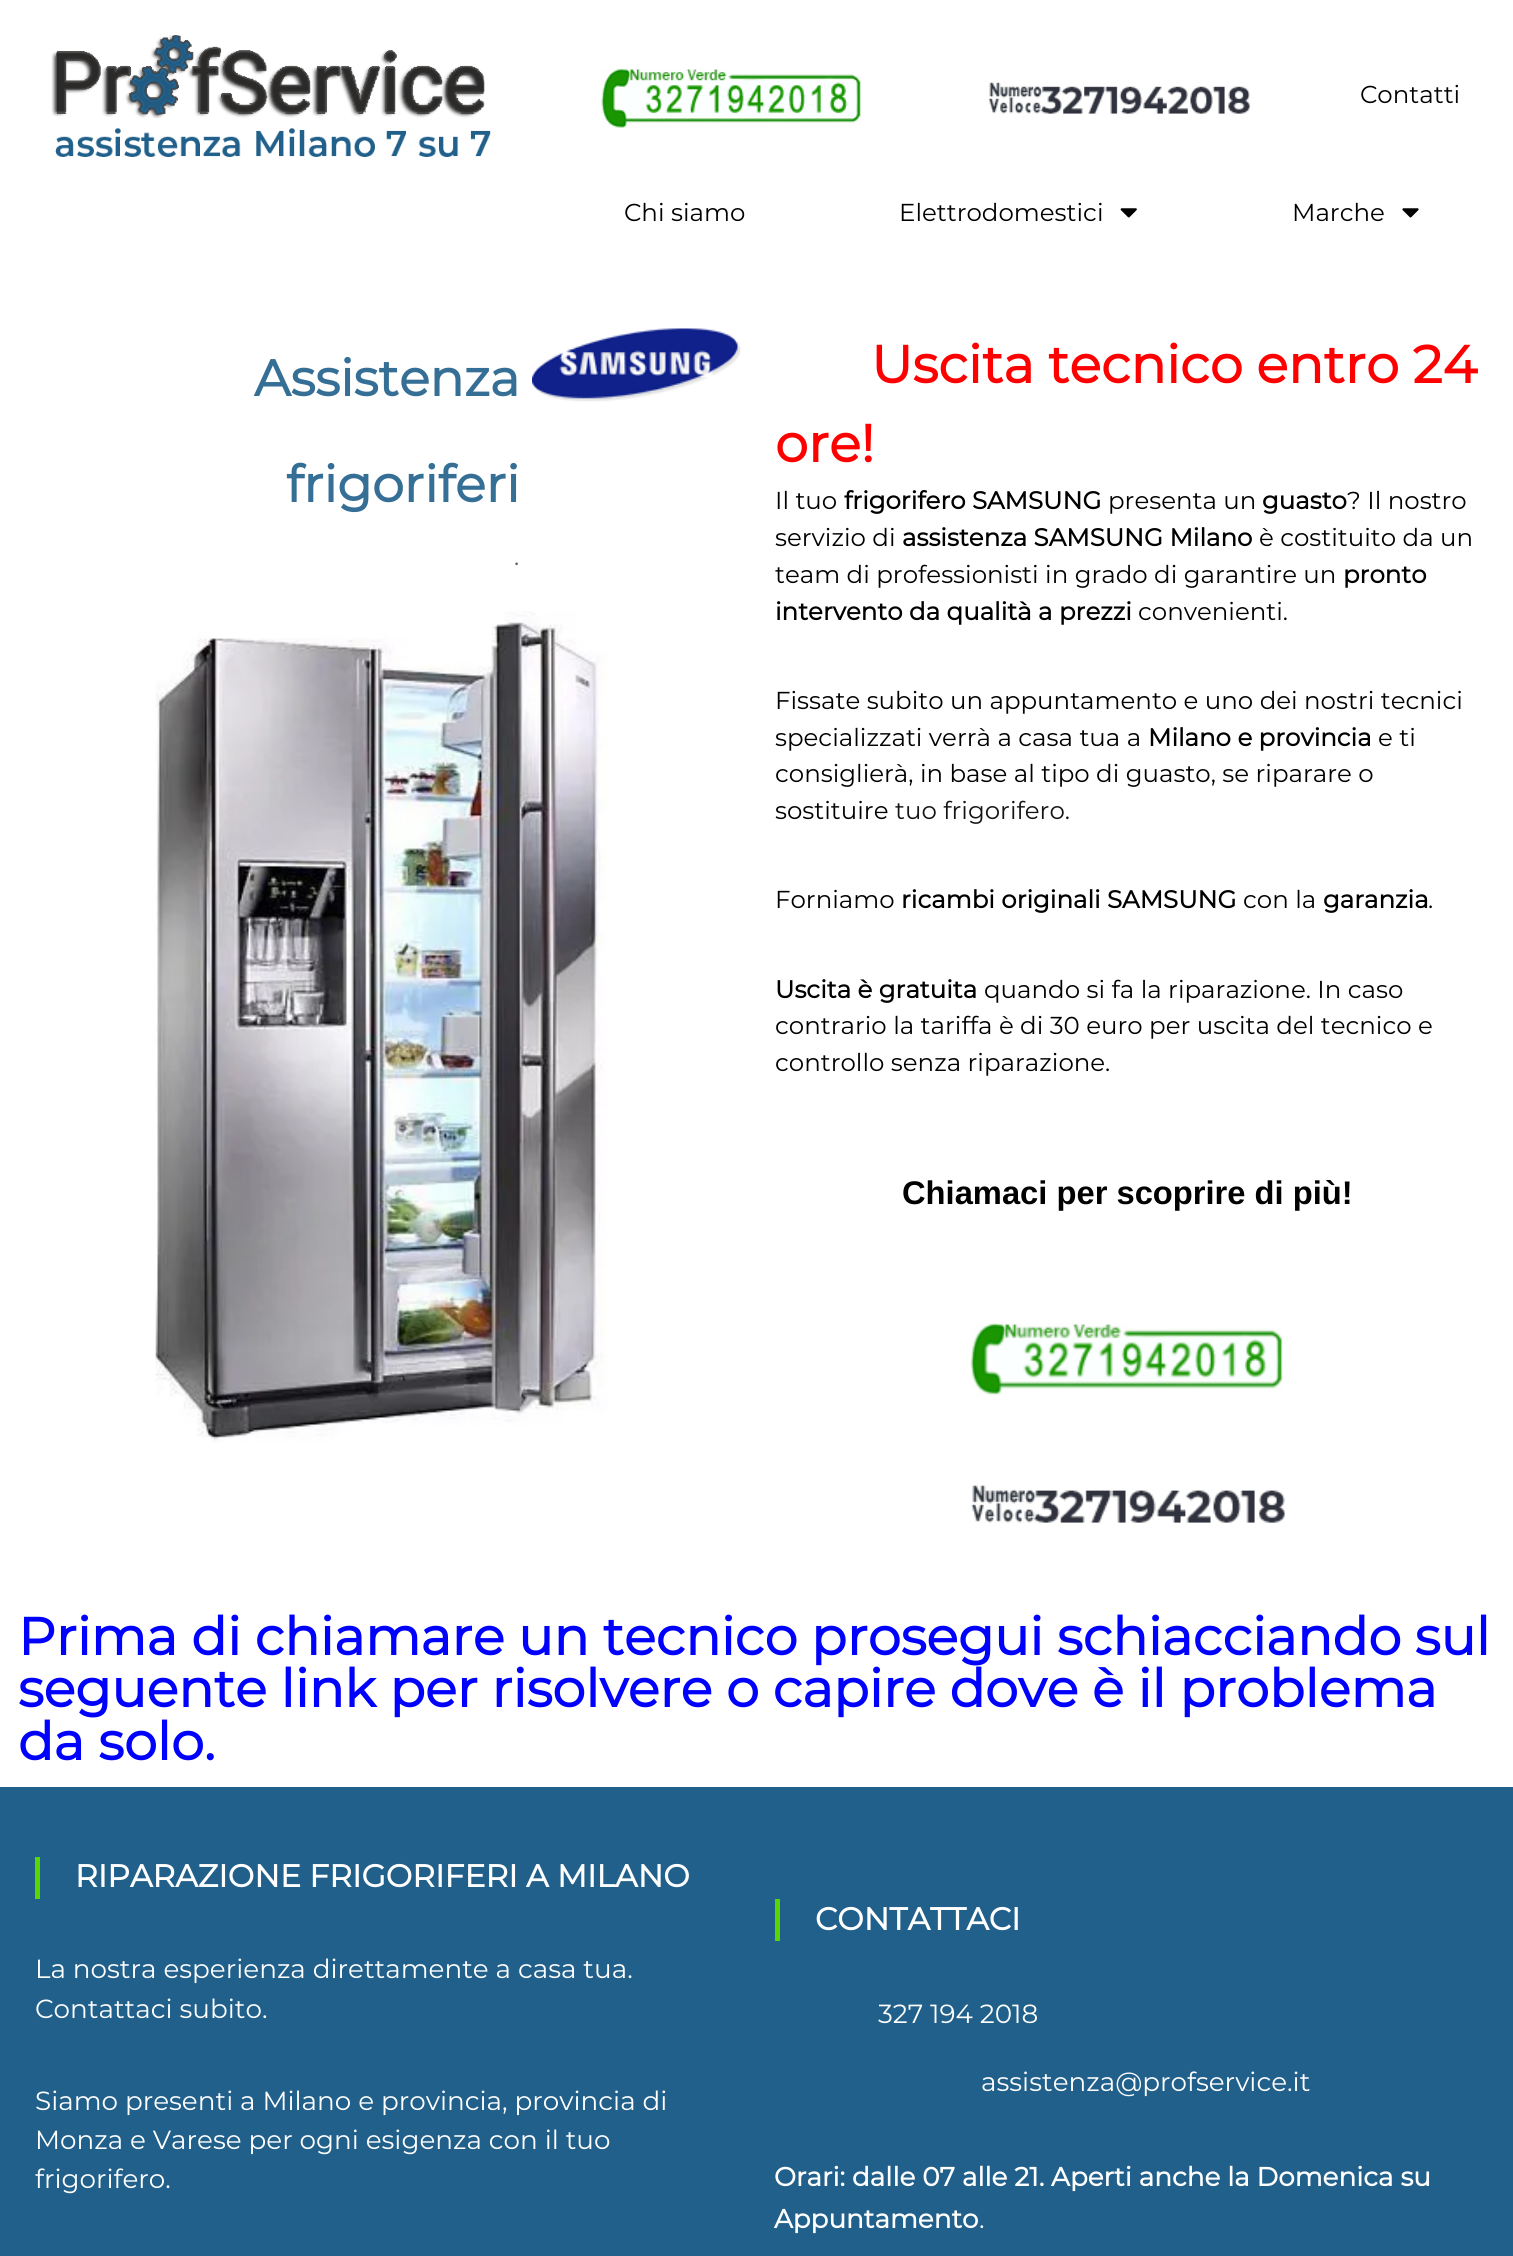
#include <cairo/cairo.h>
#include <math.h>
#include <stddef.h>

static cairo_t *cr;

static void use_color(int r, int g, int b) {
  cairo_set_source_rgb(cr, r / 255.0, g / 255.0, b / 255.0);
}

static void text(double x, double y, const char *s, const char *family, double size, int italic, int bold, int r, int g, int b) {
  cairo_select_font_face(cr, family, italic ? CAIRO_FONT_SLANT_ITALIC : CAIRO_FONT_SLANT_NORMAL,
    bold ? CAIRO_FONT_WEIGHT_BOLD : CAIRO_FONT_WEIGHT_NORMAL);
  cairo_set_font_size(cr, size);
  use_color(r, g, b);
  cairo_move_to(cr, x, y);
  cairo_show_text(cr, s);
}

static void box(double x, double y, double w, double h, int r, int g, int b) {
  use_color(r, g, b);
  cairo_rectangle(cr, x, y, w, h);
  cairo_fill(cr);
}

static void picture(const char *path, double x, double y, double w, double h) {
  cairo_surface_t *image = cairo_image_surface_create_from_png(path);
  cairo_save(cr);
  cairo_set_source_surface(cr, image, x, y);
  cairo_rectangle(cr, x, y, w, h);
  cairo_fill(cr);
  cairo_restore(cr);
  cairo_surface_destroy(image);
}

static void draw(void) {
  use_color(255, 255, 255);
  cairo_paint(cr);
  picture("img_01.png", 51, 35, 440, 122);
  picture("img_02.png", 601, 68, 260, 60);
  picture("img_03.png", 988, 81, 262, 33);
  picture("img_04.png", 1120, 208, 17, 10);
  picture("img_05.png", 1402, 208, 17, 10);
  picture("img_06.png", 532, 328, 209, 74);
  picture("img_07.png", 155, 611, 453, 832);
  picture("img_08.png", 970, 1323, 313, 73);
  picture("img_09.png", 971, 1484, 314, 40);
  box(0, 1787, 1513, 469, 33, 96, 139);
  box(35, 1857, 5, 42, 89, 214, 0);
  box(775, 1899, 5, 42, 89, 214, 0);
  text(1360, 103, "Contatti", "Montserrat", 24.5, 0, 0, 0, 0, 0);
  text(624, 221, "Chi siamo", "Montserrat", 24.5, 0, 0, 0, 0, 0);
  text(899, 221, "Elettrodomestici", "Montserrat", 24.5, 0, 0, 0, 0, 0);
  text(1292, 221, "Marche", "Montserrat", 24.5, 0, 0, 0, 0, 0);
  text(254, 396, "Assistenza", "Montserrat", 50.75, 0, 1, 54, 111, 150);
  text(286, 502, "frigoriferi", "Montserrat", 50.75, 0, 1, 54, 111, 150);
  text(514, 565, ".", "Montserrat", 24.5, 0, 0, 96, 96, 96);
  text(871, 383, "Uscita tecnico entro 24", "Montserrat", 52.5, 0, 1, 255, 0, 0);
  text(775, 462, "ore!", "Montserrat", 52.5, 0, 1, 255, 0, 0);
  text(775, 509, "Il tuo", "Montserrat", 24.5, 0, 0, 0, 0, 0);
  text(844, 509, "frigorifero SAMSUNG", "Montserrat", 24.5, 0, 1, 0, 0, 0);
  text(1108, 509, "presenta un", "Montserrat", 24.5, 0, 0, 0, 0, 0);
  text(1262, 509, "guasto", "Montserrat", 24.5, 0, 1, 0, 0, 0);
  text(1347, 509, "? Il nostro", "Montserrat", 24.5, 0, 0, 0, 0, 0);
  text(775, 546, "servizio di", "Montserrat", 24.5, 0, 0, 0, 0, 0);
  text(902, 546, "assistenza SAMSUNG Milano", "Montserrat", 24.5, 0, 1, 0, 0, 0);
  text(1259, 546, "è costituito da un", "Montserrat", 24.5, 0, 0, 0, 0, 0);
  text(775, 583, "team di professionisti in grado di garantire un", "Montserrat", 24.5, 0, 0, 0, 0, 0);
  text(1343, 583, "pronto", "Montserrat", 24.5, 0, 1, 0, 0, 0);
  text(775, 620, "intervento da qualità a prezzi", "Montserrat", 24.5, 0, 1, 0, 0, 0);
  text(1138, 620, "convenienti.", "Montserrat", 24.5, 0, 0, 0, 0, 0);
  text(775, 709, "Fissate subito un appuntamento e uno dei nostri tecnici", "Montserrat", 24.5, 0, 0, 0, 0, 0);
  text(775, 746, "specializzati verrà a casa tua a", "Montserrat", 24.5, 0, 0, 0, 0, 0);
  text(1148, 746, "Milano e provincia", "Montserrat", 24.5, 0, 1, 0, 0, 0);
  text(1378, 746, "e ti", "Montserrat", 24.5, 0, 0, 0, 0, 0);
  text(775, 782, "consiglierà, in base al tipo di guasto, se riparare o", "Montserrat", 24.5, 0, 0, 0, 0, 0);
  text(775, 819, "sostituire", "Montserrat", 24.5, 0, 0, 0, 0, 0);
  text(895, 819, "tuo frigorifero.", "Montserrat", 24.5, 0, 0, 20, 20, 20);
  text(775, 908, "Forniamo", "Montserrat", 24.5, 0, 0, 0, 0, 0);
  text(901, 908, "ricambi originali SAMSUNG", "Montserrat", 24.5, 0, 1, 0, 0, 0);
  text(1243, 908, "con la", "Montserrat", 24.5, 0, 0, 0, 0, 0);
  text(1323, 908, "garanzia", "Montserrat", 24.5, 0, 1, 0, 0, 0);
  text(1428, 908, ".", "Montserrat", 24.5, 0, 0, 0, 0, 0);
  text(775, 998, "Uscita è gratuita", "Montserrat", 24.5, 0, 1, 0, 0, 0);
  text(984, 998, "quando si fa la riparazione. In caso", "Montserrat", 24.5, 0, 0, 0, 0, 0);
  text(775, 1034, "contrario la tariffa è di 30 euro per uscita del tecnico e", "Montserrat", 24.5, 0, 0, 0, 0, 0);
  text(775, 1071, "controllo senza riparazione.", "Montserrat", 24.5, 0, 0, 0, 0, 0);
  text(902, 1204, "Chiamaci per scoprire di più!", "Liberation Sans", 32.7, 0, 1, 0, 0, 0);
  text(18, 1655, "Prima di chiamare un tecnico prosegui schiacciando sul", "Montserrat", 52.5, 0, 1, 0, 0, 255);
  text(18, 1707, "seguente link per risolvere o capire dove è il problema", "Montserrat", 52.5, 0, 1, 0, 0, 255);
  text(18, 1760, "da solo.", "Montserrat", 52.5, 0, 1, 0, 0, 255);
  text(75, 1887, "RIPARAZIONE FRIGORIFERI A MILANO", "Montserrat", 31.5, 0, 1, 255, 255, 255);
  text(35, 1978, "La nostra esperienza direttamente a casa tua.", "Montserrat", 26.25, 0, 0, 255, 255, 255);
  text(35, 2018, "Contattaci subito.", "Montserrat", 26.25, 0, 0, 255, 255, 255);
  text(35, 2110, "Siamo presenti a Milano e provincia, provincia di", "Montserrat", 26.25, 0, 0, 255, 255, 255);
  text(35, 2149, "Monza e Varese per ogni esigenza con il tuo", "Montserrat", 26.25, 0, 0, 255, 255, 255);
  text(35, 2188, "frigorifero.", "Montserrat", 26.25, 0, 0, 255, 255, 255);
  text(815, 1930, "CONTATTACI", "Montserrat", 31.5, 0, 1, 255, 255, 255);
  text(878, 2023, "327 194 2018", "Montserrat", 26.25, 0, 0, 255, 255, 255);
  text(981, 2091, "assistenza@profservice.it", "Montserrat", 26.25, 0, 0, 255, 255, 255);
  text(774, 2186, "Orari: dalle 07 alle 21. Aperti anche la Domenica su", "Montserrat", 26.25, 0, 1, 255, 255, 255);
  text(774, 2228, "Appuntamento", "Montserrat", 26.25, 0, 1, 255, 255, 255);
  text(979, 2228, ".", "Montserrat", 26.25, 0, 0, 255, 255, 255);
}

int main(void) {
  cairo_surface_t *surface = cairo_image_surface_create(CAIRO_FORMAT_RGB24, 1513, 2256);
  cr = cairo_create(surface);
  cairo_font_options_t *options = cairo_font_options_create();
  cairo_font_options_set_hint_metrics(options, CAIRO_HINT_METRICS_OFF);
  cairo_font_options_set_hint_style(options, CAIRO_HINT_STYLE_NONE);
  cairo_set_font_options(cr, options);
  cairo_set_miter_limit(cr, 4);
  draw();
  cairo_surface_write_to_png(surface, "out.png");
  cairo_font_options_destroy(options);
  cairo_destroy(cr);
  cairo_surface_destroy(surface);
  return 0;
}
